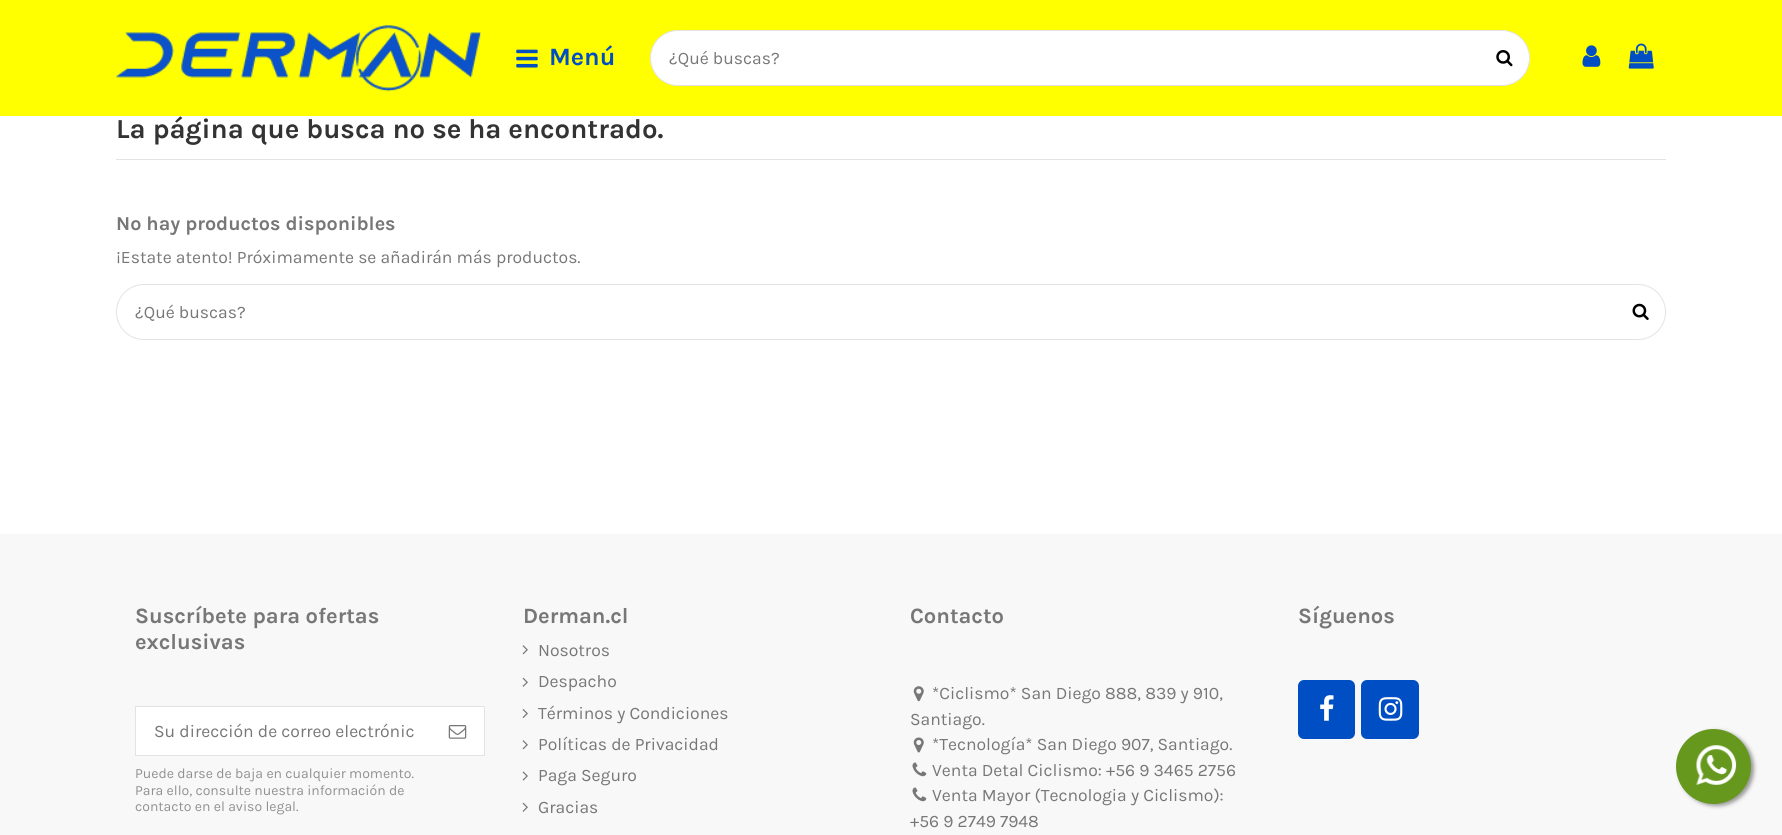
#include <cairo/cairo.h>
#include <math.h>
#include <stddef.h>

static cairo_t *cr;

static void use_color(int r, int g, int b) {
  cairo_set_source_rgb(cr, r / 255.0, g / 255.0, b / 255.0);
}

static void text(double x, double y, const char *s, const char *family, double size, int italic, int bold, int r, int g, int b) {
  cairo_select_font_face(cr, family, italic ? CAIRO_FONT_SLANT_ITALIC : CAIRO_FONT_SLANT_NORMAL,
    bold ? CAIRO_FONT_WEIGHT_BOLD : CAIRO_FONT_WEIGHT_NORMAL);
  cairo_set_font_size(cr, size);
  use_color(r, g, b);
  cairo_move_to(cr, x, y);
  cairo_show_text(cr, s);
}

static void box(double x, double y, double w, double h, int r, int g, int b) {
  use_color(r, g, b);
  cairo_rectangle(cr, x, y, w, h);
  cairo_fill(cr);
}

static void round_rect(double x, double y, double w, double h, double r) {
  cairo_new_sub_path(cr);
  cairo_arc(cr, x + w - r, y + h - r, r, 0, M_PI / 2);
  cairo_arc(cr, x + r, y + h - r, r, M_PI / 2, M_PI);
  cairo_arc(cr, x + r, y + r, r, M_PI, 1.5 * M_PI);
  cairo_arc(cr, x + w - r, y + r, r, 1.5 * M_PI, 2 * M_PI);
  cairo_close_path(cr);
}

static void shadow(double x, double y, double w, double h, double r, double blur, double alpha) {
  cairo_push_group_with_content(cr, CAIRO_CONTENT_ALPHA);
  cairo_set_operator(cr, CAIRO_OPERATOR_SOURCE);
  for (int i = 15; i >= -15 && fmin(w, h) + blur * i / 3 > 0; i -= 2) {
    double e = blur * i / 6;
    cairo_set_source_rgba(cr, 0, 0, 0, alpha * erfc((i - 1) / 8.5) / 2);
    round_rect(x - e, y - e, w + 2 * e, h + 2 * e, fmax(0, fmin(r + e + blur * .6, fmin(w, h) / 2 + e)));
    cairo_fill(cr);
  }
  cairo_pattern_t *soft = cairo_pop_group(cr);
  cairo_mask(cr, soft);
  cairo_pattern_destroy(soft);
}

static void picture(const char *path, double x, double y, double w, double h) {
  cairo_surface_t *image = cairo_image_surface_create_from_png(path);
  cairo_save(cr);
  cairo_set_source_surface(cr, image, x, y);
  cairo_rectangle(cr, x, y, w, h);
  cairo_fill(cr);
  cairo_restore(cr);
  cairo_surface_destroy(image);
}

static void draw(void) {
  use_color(255, 255, 255);
  cairo_paint(cr);
  box(0, 0, 1782, 116, 255, 255, 0);
  picture("img_01.png", 116, 25, 366, 67);
  picture("img_02.png", 516, 49, 22, 19);
  use_color(255, 255, 255);
  round_rect(650.5, 30.5, 879, 55, 27.5);
  cairo_fill_preserve(cr);
  use_color(227, 227, 227);
  cairo_set_line_width(cr, 1);
  cairo_stroke(cr);
  picture("img_03.png", 1496, 50, 17, 17);
  picture("img_04.png", 1582, 45, 19, 22);
  picture("img_05.png", 1628, 43, 26, 26);
  box(116, 159, 1550, 1, 227, 227, 227);
  round_rect(116.5, 284.5, 1549, 55, 27.5);
  cairo_stroke(cr);
  picture("img_06.png", 1632, 303, 17, 17);
  box(0, 534, 1782, 301, 248, 248, 248);
  use_color(255, 255, 255);
  cairo_rectangle(cr, 135.5, 706.5, 349, 49);
  cairo_fill_preserve(cr);
  use_color(227, 227, 227);
  cairo_stroke(cr);
  picture("img_07.png", 448, 725, 19, 14);
  picture("img_08.png", 522, 645, 6, 10);
  picture("img_09.png", 522, 677, 6, 10);
  picture("img_10.png", 522, 709, 6, 9);
  picture("img_08.png", 522, 740, 6, 10);
  picture("img_11.png", 522, 771, 6, 10);
  picture("img_09.png", 522, 802, 6, 10);
  picture("img_12.png", 913, 686, 11, 16);
  picture("img_13.png", 913, 737, 11, 16);
  picture("img_14.png", 912, 762, 15, 15);
  picture("img_14.png", 912, 787, 15, 15);
  use_color(0, 78, 195);
  round_rect(1298, 680, 57, 59, 6);
  cairo_fill(cr);
  picture("img_15.png", 1320, 695, 14, 26);
  round_rect(1361, 680, 58, 59, 6);
  cairo_fill(cr);
  picture("img_16.png", 1378, 697, 25, 24);
  use_color(153, 153, 153);
  shadow(1679, 731, 75, 75, 37.5, 2, 1);
  use_color(102, 152, 30);
  cairo_arc(cr, 1713.5, 766.5, 37.5, 0, 2 * M_PI);
  cairo_fill(cr);
  picture("img_17.png", 1696, 745, 41, 40);
  text(549, 65, "Menú", "Karla", 25, 0, 1, 0, 78, 195);
  text(669, 64, "¿Qué buscas?", "Karla", 17.5, 0, 0, 119, 119, 119);
  text(116, 138, "La página que busca no se ha encontrado.", "Karla", 27.5, 0, 1, 51, 51, 51);
  text(116, 230, "No hay productos disponibles", "Karla", 19.75, 0, 1, 119, 119, 119);
  text(116, 263, "¡Estate atento! Próximamente se añadirán más productos.", "Karla", 17.5, 0, 0, 119, 119, 119);
  text(135, 318, "¿Qué buscas?", "Karla", 17.5, 0, 0, 119, 119, 119);
  text(135, 623, "Suscríbete para ofertas", "Karla", 21.9, 0, 1, 119, 119, 119);
  text(135, 649, "exclusivas", "Karla", 21.9, 0, 1, 119, 119, 119);
  text(154, 737, "Su dirección de correo electrónic", "Karla", 17.5, 0, 0, 119, 119, 119);
  text(135, 778, "Puede darse de baja en cualquier momento.", "Karla", 14, 0, 0, 145, 145, 145);
  text(135, 795, "Para ello, consulte nuestra información de", "Karla", 14, 0, 0, 145, 145, 145);
  text(135, 811, "contacto en el aviso legal.", "Karla", 14, 0, 0, 145, 145, 145);
  text(523, 623, "Derman.cl", "Karla", 21.9, 0, 1, 119, 119, 119);
  text(538, 656, "Nosotros", "Karla", 17.5, 0, 0, 119, 119, 119);
  text(538, 687, "Despacho", "Karla", 17.5, 0, 0, 119, 119, 119);
  text(538, 719, "Términos y Condiciones", "Karla", 17.5, 0, 0, 119, 119, 119);
  text(538, 750, "Políticas de Privacidad", "Karla", 17.5, 0, 0, 119, 119, 119);
  text(538, 781, "Paga Seguro", "Karla", 17.5, 0, 0, 119, 119, 119);
  text(538, 813, "Gracias", "Karla", 17.5, 0, 0, 119, 119, 119);
  text(910, 623, "Contacto", "Karla", 21.9, 0, 1, 119, 119, 119);
  text(932, 699, "*Ciclismo* San Diego 888, 839 y 910,", "Karla", 17.5, 0, 0, 119, 119, 119);
  text(910, 725, "Santiago.", "Karla", 17.5, 0, 0, 119, 119, 119);
  text(932, 750, "*Tecnología* San Diego 907, Santiago.", "Karla", 17.5, 0, 0, 119, 119, 119);
  text(932, 776, "Venta Detal Ciclismo: +56 9 3465 2756", "Karla", 17.5, 0, 0, 119, 119, 119);
  text(932, 801, "Venta Mayor (Tecnologia y Ciclismo):", "Karla", 17.5, 0, 0, 119, 119, 119);
  text(910, 827, "+56 9 2749 7948", "Karla", 17.5, 0, 0, 119, 119, 119);
  text(1298, 623, "Síguenos", "Karla", 21.9, 0, 1, 119, 119, 119);
}

int main(void) {
  cairo_surface_t *surface = cairo_image_surface_create(CAIRO_FORMAT_RGB24, 1782, 835);
  cr = cairo_create(surface);
  cairo_font_options_t *options = cairo_font_options_create();
  cairo_font_options_set_hint_metrics(options, CAIRO_HINT_METRICS_OFF);
  cairo_font_options_set_hint_style(options, CAIRO_HINT_STYLE_NONE);
  cairo_set_font_options(cr, options);
  cairo_set_miter_limit(cr, 4);
  draw();
  cairo_surface_write_to_png(surface, "out.png");
  cairo_font_options_destroy(options);
  cairo_destroy(cr);
  cairo_surface_destroy(surface);
  return 0;
}
